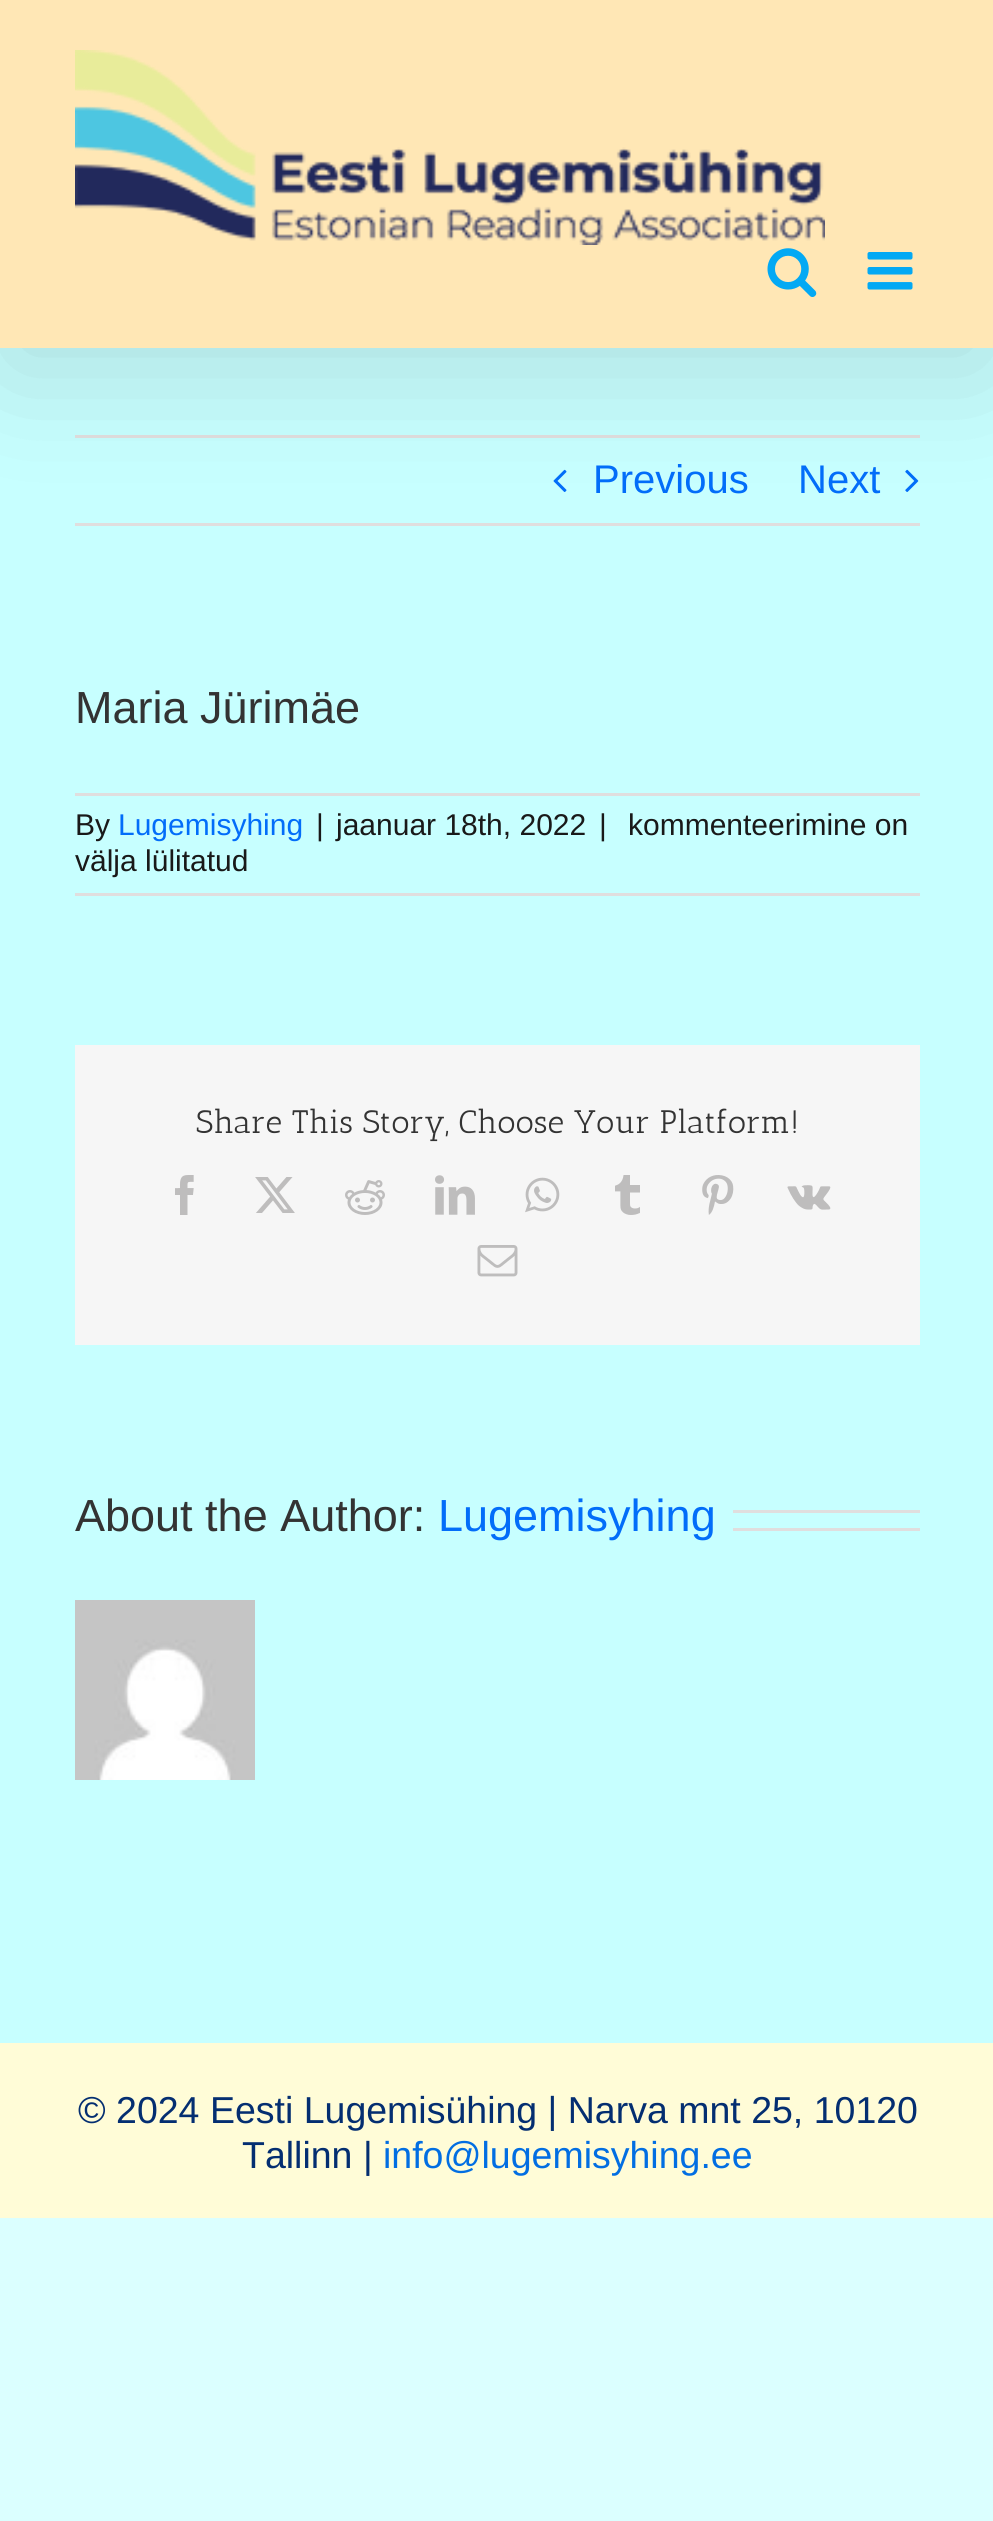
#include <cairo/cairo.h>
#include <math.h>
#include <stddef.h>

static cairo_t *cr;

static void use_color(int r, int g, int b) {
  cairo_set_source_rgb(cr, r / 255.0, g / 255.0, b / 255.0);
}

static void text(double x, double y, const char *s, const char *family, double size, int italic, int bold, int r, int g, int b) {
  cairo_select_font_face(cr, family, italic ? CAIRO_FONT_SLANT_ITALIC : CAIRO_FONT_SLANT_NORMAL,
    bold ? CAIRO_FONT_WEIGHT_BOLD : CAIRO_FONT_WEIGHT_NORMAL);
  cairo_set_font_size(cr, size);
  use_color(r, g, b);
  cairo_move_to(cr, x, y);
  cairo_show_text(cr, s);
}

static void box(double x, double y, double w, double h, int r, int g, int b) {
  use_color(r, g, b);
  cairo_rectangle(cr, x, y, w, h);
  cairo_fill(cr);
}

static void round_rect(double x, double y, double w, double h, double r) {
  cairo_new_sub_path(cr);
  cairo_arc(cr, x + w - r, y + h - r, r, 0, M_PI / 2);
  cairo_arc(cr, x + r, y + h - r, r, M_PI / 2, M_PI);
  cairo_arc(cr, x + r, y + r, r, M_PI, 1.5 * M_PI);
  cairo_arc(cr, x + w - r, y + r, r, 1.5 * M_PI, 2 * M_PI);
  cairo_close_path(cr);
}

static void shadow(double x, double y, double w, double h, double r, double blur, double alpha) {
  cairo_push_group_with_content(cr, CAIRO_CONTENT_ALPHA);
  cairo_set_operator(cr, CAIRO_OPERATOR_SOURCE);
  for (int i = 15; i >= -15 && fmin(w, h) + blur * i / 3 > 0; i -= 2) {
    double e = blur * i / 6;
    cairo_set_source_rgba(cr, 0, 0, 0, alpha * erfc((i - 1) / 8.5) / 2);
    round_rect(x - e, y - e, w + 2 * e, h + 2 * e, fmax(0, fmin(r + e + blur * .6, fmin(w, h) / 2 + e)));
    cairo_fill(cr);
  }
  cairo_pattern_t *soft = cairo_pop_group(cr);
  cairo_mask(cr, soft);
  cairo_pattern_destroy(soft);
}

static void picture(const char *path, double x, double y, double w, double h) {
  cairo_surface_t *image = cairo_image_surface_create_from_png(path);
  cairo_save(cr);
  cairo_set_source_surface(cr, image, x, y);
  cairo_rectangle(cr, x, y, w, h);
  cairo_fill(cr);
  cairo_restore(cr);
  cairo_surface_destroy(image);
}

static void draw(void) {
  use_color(219, 255, 255);
  cairo_paint(cr);
  box(0, 348, 993, 1695, 199, 255, 255);
  box(75, 435, 845, 3, 224, 222, 222);
  box(75, 523, 845, 3, 224, 222, 222);
  picture("img_04.png", 553, 469, 14, 23);
  picture("img_05.png", 905, 469, 14, 23);
  use_color(0, 0, 0);
  shadow(5, 30, 985, 338, 0, 62.5, 0.14);
  box(0, 0, 993, 348, 255, 231, 181);
  picture("img_01.png", 75, 50, 750, 195);
  picture("img_02.png", 767, 248, 50, 49);
  picture("img_03.png", 867, 252, 46, 38);
  box(75, 793, 845, 3, 224, 222, 222);
  box(75, 893, 845, 3, 224, 222, 222);
  box(75, 1045, 845, 300, 246, 246, 246);
  picture("img_06.png", 175, 1175, 19, 40);
  picture("img_07.png", 255, 1177, 40, 36);
  picture("img_08.png", 345, 1180, 40, 35);
  picture("img_09.png", 435, 1175, 40, 40);
  picture("img_10.png", 525, 1177, 35, 36);
  picture("img_11.png", 615, 1175, 25, 40);
  picture("img_12.png", 702, 1175, 32, 40);
  picture("img_13.png", 787, 1185, 44, 25);
  picture("img_14.png", 477, 1245, 41, 32);
  box(733, 1510, 187, 3, 224, 222, 222);
  box(733, 1528, 187, 3, 224, 222, 222);
  picture("img_15.png", 75, 1600, 180, 180);
  box(0, 2043, 993, 175, 255, 252, 215);
  text(593, 493, "Previous", "Liberation Sans", 40, 0, 0, 2, 109, 249);
  text(798, 493, "Next", "Liberation Sans", 40, 0, 0, 2, 109, 249);
  text(75, 723, "Maria Jürimäe", "Liberation Sans", 45, 0, 0, 51, 51, 51);
  text(75, 835, "By", "Liberation Sans", 30, 0, 0, 25, 25, 25);
  text(118, 835, "Lugemisyhing", "Liberation Sans", 30, 0, 0, 2, 109, 249);
  text(316, 835, "|", "Liberation Sans", 30, 0, 0, 25, 25, 25);
  text(336, 835, "jaanuar 18th, 2022", "Liberation Sans", 30, 0, 0, 25, 25, 25);
  text(599, 835, "|", "Liberation Sans", 30, 0, 0, 25, 25, 25);
  text(628, 835, "kommenteerimine on", "Liberation Sans", 30, 0, 0, 25, 25, 25);
  text(75, 871, "välja lülitatud", "Liberation Sans", 30, 0, 0, 25, 25, 25);
  text(196, 1133, "Share This Story, Choose Your Platform!", "Antic Slab", 32.5, 0, 0, 51, 51, 51);
  text(75, 1531, "About the Author:", "Liberation Sans", 45, 0, 0, 51, 51, 51);
  text(438, 1531, "Lugemisyhing", "Liberation Sans", 45, 0, 0, 2, 109, 249);
  text(78, 2123, "© 2024 Eesti Lugemisühing | Narva mnt 25, 10120", "Liberation Sans", 37.5, 0, 0, 4, 46, 113);
  text(242, 2168, "Tallinn |", "Liberation Sans", 37.5, 0, 0, 4, 46, 113);
  text(383, 2168, "info@lugemisyhing.ee", "Liberation Sans", 37.5, 0, 0, 2, 110, 226);
}

int main(void) {
  cairo_surface_t *surface = cairo_image_surface_create(CAIRO_FORMAT_RGB24, 993, 2521);
  cr = cairo_create(surface);
  cairo_font_options_t *options = cairo_font_options_create();
  cairo_font_options_set_hint_metrics(options, CAIRO_HINT_METRICS_OFF);
  cairo_font_options_set_hint_style(options, CAIRO_HINT_STYLE_NONE);
  cairo_set_font_options(cr, options);
  cairo_set_miter_limit(cr, 4);
  draw();
  cairo_surface_write_to_png(surface, "out.png");
  cairo_font_options_destroy(options);
  cairo_destroy(cr);
  cairo_surface_destroy(surface);
  return 0;
}
